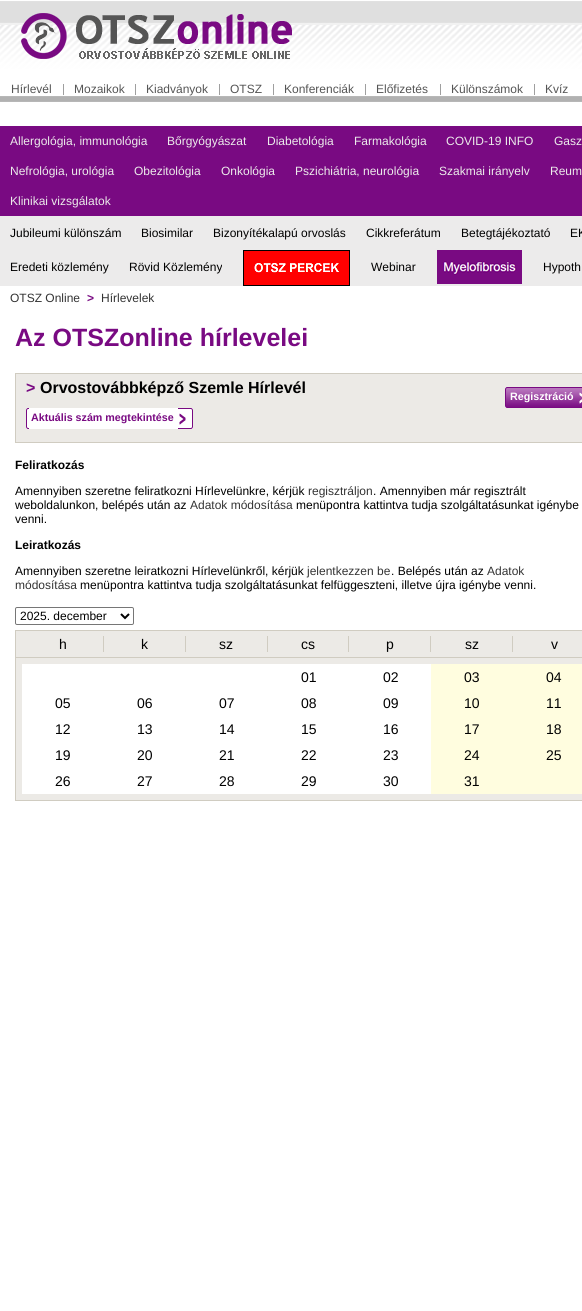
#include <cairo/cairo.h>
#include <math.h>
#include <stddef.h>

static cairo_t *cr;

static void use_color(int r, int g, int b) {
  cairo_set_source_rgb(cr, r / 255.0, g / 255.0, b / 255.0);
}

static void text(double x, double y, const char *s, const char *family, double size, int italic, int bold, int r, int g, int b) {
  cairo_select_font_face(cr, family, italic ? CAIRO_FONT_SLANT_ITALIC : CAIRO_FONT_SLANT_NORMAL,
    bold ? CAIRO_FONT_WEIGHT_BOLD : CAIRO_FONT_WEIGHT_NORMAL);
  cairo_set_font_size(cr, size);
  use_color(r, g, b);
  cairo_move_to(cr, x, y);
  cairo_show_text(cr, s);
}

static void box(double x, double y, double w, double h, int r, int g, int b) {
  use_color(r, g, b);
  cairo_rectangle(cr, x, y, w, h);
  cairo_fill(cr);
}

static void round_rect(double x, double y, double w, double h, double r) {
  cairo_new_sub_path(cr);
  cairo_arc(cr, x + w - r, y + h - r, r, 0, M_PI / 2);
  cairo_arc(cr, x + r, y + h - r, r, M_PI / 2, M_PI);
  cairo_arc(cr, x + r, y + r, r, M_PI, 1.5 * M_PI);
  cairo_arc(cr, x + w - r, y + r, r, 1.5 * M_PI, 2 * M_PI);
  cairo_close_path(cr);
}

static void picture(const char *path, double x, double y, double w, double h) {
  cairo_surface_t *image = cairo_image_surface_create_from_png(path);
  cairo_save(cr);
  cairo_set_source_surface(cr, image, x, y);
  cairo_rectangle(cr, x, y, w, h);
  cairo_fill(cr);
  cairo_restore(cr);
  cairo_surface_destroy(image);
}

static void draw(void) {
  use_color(255, 255, 255);
  cairo_paint(cr);
  picture("img_01.png", 0, 1, 582, 101);
  picture("img_02.png", 21, 13, 271, 46);
  box(63, 84, 1, 11, 159, 159, 159);
  box(135, 84, 1, 11, 159, 159, 159);
  box(219, 84, 1, 11, 159, 159, 159);
  box(273, 84, 1, 11, 159, 159, 159);
  box(365, 84, 1, 11, 159, 159, 159);
  box(440, 84, 1, 11, 159, 159, 159);
  box(534, 84, 1, 11, 159, 159, 159);
  box(0, 126, 582, 90, 121, 10, 130);
  box(0, 216, 582, 70, 236, 235, 235);
  picture("img_03.png", 243, 250, 107, 36);
  picture("img_04.png", 437, 250, 85, 34);
  use_color(236, 234, 230);
  cairo_rectangle(cr, 15.5, 373.5, 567, 69);
  cairo_fill_preserve(cr);
  use_color(208, 204, 193);
  cairo_set_line_width(cr, 1);
  cairo_stroke(cr);
  picture("img_05.png", 505, 387, 3, 21);
  picture("img_06.png", 508, 387, 70, 21);
  picture("img_07.png", 578, 387, 4, 21);
  picture("img_08.png", 26, 408, 3, 21);
  box(29, 408, 149, 21, 255, 255, 255);
  picture("img_09.png", 178, 408, 15, 21);
  round_rect(15.5, 607.5, 118, 17, 1.5);
  use_color(118, 118, 118);
  cairo_stroke(cr);
  cairo_new_path(cr);
  cairo_move_to(cr, 121, 614);
  cairo_line_to(cr, 125, 618);
  cairo_line_to(cr, 129, 614);
  use_color(0, 0, 0);
  cairo_set_line_width(cr, 2);
  cairo_stroke(cr);
  box(16, 631, 566, 169, 236, 234, 230);
  box(15, 630, 567, 1, 208, 204, 193);
  box(15, 800, 567, 1, 208, 204, 193);
  box(15, 630, 1, 171, 208, 204, 193);
  box(103, 636, 1, 16, 208, 204, 193);
  box(185, 636, 1, 16, 208, 204, 193);
  box(267, 636, 1, 16, 208, 204, 193);
  box(348, 636, 1, 16, 208, 204, 193);
  box(430, 636, 1, 16, 208, 204, 193);
  box(512, 636, 1, 16, 208, 204, 193);
  box(15, 657, 567, 1, 208, 204, 193);
  box(22, 664, 409, 26, 255, 255, 255);
  box(431, 664, 151, 26, 255, 253, 223);
  box(22, 690, 409, 26, 255, 255, 255);
  box(431, 690, 151, 26, 255, 253, 223);
  box(22, 716, 409, 26, 255, 255, 255);
  box(431, 716, 151, 26, 255, 253, 223);
  box(22, 742, 409, 26, 255, 255, 255);
  box(431, 742, 151, 26, 255, 253, 223);
  box(22, 768, 409, 26, 255, 255, 255);
  box(431, 768, 151, 26, 255, 253, 223);
  text(11, 93, "Hírlevél", "Liberation Sans", 12, 0, 0, 85, 85, 85);
  text(74, 93, "Mozaikok", "Liberation Sans", 12, 0, 0, 85, 85, 85);
  text(146, 93, "Kiadványok", "Liberation Sans", 12, 0, 0, 85, 85, 85);
  text(230, 93, "OTSZ", "Liberation Sans", 12, 0, 0, 85, 85, 85);
  text(284, 93, "Konferenciák", "Liberation Sans", 12, 0, 0, 85, 85, 85);
  text(376, 93, "Előfizetés", "Liberation Sans", 12, 0, 0, 85, 85, 85);
  text(451, 93, "Különszámok", "Liberation Sans", 12, 0, 0, 85, 85, 85);
  text(545, 93, "Kvíz", "Liberation Sans", 12, 0, 0, 85, 85, 85);
  text(10, 145, "Allergológia, immunológia", "Liberation Sans", 12, 0, 0, 236, 235, 235);
  text(167, 145, "Bőrgyógyászat", "Liberation Sans", 12, 0, 0, 236, 235, 235);
  text(267, 145, "Diabetológia", "Liberation Sans", 12, 0, 0, 236, 235, 235);
  text(354, 145, "Farmakológia", "Liberation Sans", 12, 0, 0, 236, 235, 235);
  text(446, 145, "COVID-19 INFO", "Liberation Sans", 12, 0, 0, 236, 235, 235);
  text(554, 145, "Gasz", "Liberation Sans", 12, 0, 0, 236, 235, 235);
  text(10, 175, "Nefrológia, urológia", "Liberation Sans", 12, 0, 0, 236, 235, 235);
  text(134, 175, "Obezitológia", "Liberation Sans", 12, 0, 0, 236, 235, 235);
  text(221, 175, "Onkológia", "Liberation Sans", 12, 0, 0, 236, 235, 235);
  text(295, 175, "Pszichiátria, neurológia", "Liberation Sans", 12, 0, 0, 236, 235, 235);
  text(439, 175, "Szakmai irányelv", "Liberation Sans", 12, 0, 0, 236, 235, 235);
  text(550, 175, "Reum", "Liberation Sans", 12, 0, 0, 236, 235, 235);
  text(10, 205, "Klinikai vizsgálatok", "Liberation Sans", 12, 0, 0, 236, 235, 235);
  text(10, 237, "Jubileumi különszám", "Liberation Sans", 12, 0, 0, 0, 0, 0);
  text(141, 237, "Biosimilar", "Liberation Sans", 12, 0, 0, 0, 0, 0);
  text(213, 237, "Bizonyítékalapú orvoslás", "Liberation Sans", 12, 0, 0, 0, 0, 0);
  text(366, 237, "Cikkreferátum", "Liberation Sans", 12, 0, 0, 0, 0, 0);
  text(461, 237, "Betegtájékoztató", "Liberation Sans", 12, 0, 0, 0, 0, 0);
  text(570, 237, "EK", "Liberation Sans", 12, 0, 0, 0, 0, 0);
  text(10, 271, "Eredeti közlemény", "Liberation Sans", 12, 0, 0, 0, 0, 0);
  text(129, 271, "Rövid Közlemény", "Liberation Sans", 12, 0, 0, 0, 0, 0);
  text(371, 271, "Webinar", "Liberation Sans", 12, 0, 0, 0, 0, 0);
  text(543, 271, "Hypoth", "Liberation Sans", 12, 0, 0, 0, 0, 0);
  text(10, 302, "OTSZ Online", "Liberation Sans", 12, 0, 0, 51, 51, 51);
  text(87, 302, ">", "Liberation Sans", 12, 0, 1, 121, 10, 130);
  text(101, 302, "Hírlevelek", "Liberation Sans", 12, 0, 0, 51, 51, 51);
  text(15, 346, "Az OTSZonline hírlevelei", "Liberation Sans", 25, 0, 1, 121, 10, 130);
  text(26, 393, ">", "Liberation Sans", 16, 0, 1, 121, 10, 130);
  text(40, 393, "Orvostovábbképző Szemle Hírlevél", "Liberation Sans", 16, 0, 1, 0, 0, 0);
  text(510, 400, "Regisztráció", "Liberation Sans", 10.7, 0, 1, 255, 255, 255);
  text(31, 421, "Aktuális szám megtekintése", "Liberation Sans", 10.7, 0, 1, 121, 10, 130);
  text(15, 469, "Feliratkozás", "Liberation Sans", 12, 0, 1, 0, 0, 0);
  text(15, 495, "Amennyiben szeretne feliratkozni Hírlevelünkre, kérjük", "Liberation Sans", 12, 0, 0, 0, 0, 0);
  text(308, 495, "regisztráljon", "Liberation Sans", 12, 0, 0, 51, 51, 51);
  text(373, 495, ". Amennyiben már regisztrált", "Liberation Sans", 12, 0, 0, 0, 0, 0);
  text(15, 509, "weboldalunkon, belépés után az", "Liberation Sans", 12, 0, 0, 0, 0, 0);
  text(190, 509, "Adatok módosítása", "Liberation Sans", 12, 0, 0, 51, 51, 51);
  text(296, 509, "menüpontra kattintva tudja szolgáltatásunkat igénybe", "Liberation Sans", 12, 0, 0, 0, 0, 0);
  text(15, 523, "venni.", "Liberation Sans", 12, 0, 0, 0, 0, 0);
  text(15, 549, "Leiratkozás", "Liberation Sans", 12, 0, 1, 0, 0, 0);
  text(15, 575, "Amennyiben szeretne leiratkozni Hírlevelünkről, kérjük", "Liberation Sans", 12, 0, 0, 0, 0, 0);
  text(307, 575, "jelentkezzen be", "Liberation Sans", 12, 0, 0, 51, 51, 51);
  text(391, 575, ". Belépés után az", "Liberation Sans", 12, 0, 0, 0, 0, 0);
  text(487, 575, "Adatok", "Liberation Sans", 12, 0, 0, 51, 51, 51);
  text(15, 589, "módosítása", "Liberation Sans", 12, 0, 0, 51, 51, 51);
  text(80, 589, "menüpontra kattintva tudja szolgáltatásunkat felfüggeszteni, illetve újra igénybe venni.", "Liberation Sans", 12, 0, 0, 0, 0, 0);
  text(20, 620, "2025. december", "Liberation Sans", 12, 0, 0, 0, 0, 0);
  text(59, 649, "h", "Liberation Sans", 14, 0, 0, 0, 0, 0);
  text(141, 649, "k", "Liberation Sans", 14, 0, 0, 0, 0, 0);
  text(219, 649, "sz", "Liberation Sans", 14, 0, 0, 0, 0, 0);
  text(301, 649, "cs", "Liberation Sans", 14, 0, 0, 0, 0, 0);
  text(386, 649, "p", "Liberation Sans", 14, 0, 0, 0, 0, 0);
  text(465, 649, "sz", "Liberation Sans", 14, 0, 0, 0, 0, 0);
  text(551, 649, "v", "Liberation Sans", 14, 0, 0, 0, 0, 0);
  text(301, 682, "01", "Liberation Sans", 14, 0, 0, 0, 0, 0);
  text(383, 682, "02", "Liberation Sans", 14, 0, 0, 0, 0, 0);
  text(464, 682, "03", "Liberation Sans", 14, 0, 0, 0, 0, 0);
  text(546, 682, "04", "Liberation Sans", 14, 0, 0, 0, 0, 0);
  text(55, 708, "05", "Liberation Sans", 14, 0, 0, 0, 0, 0);
  text(137, 708, "06", "Liberation Sans", 14, 0, 0, 0, 0, 0);
  text(219, 708, "07", "Liberation Sans", 14, 0, 0, 0, 0, 0);
  text(301, 708, "08", "Liberation Sans", 14, 0, 0, 0, 0, 0);
  text(383, 708, "09", "Liberation Sans", 14, 0, 0, 0, 0, 0);
  text(464, 708, "10", "Liberation Sans", 14, 0, 0, 0, 0, 0);
  text(546, 708, "11", "Liberation Sans", 14, 0, 0, 0, 0, 0);
  text(55, 734, "12", "Liberation Sans", 14, 0, 0, 0, 0, 0);
  text(137, 734, "13", "Liberation Sans", 14, 0, 0, 0, 0, 0);
  text(219, 734, "14", "Liberation Sans", 14, 0, 0, 0, 0, 0);
  text(301, 734, "15", "Liberation Sans", 14, 0, 0, 0, 0, 0);
  text(383, 734, "16", "Liberation Sans", 14, 0, 0, 0, 0, 0);
  text(464, 734, "17", "Liberation Sans", 14, 0, 0, 0, 0, 0);
  text(546, 734, "18", "Liberation Sans", 14, 0, 0, 0, 0, 0);
  text(55, 760, "19", "Liberation Sans", 14, 0, 0, 0, 0, 0);
  text(137, 760, "20", "Liberation Sans", 14, 0, 0, 0, 0, 0);
  text(219, 760, "21", "Liberation Sans", 14, 0, 0, 0, 0, 0);
  text(301, 760, "22", "Liberation Sans", 14, 0, 0, 0, 0, 0);
  text(383, 760, "23", "Liberation Sans", 14, 0, 0, 0, 0, 0);
  text(464, 760, "24", "Liberation Sans", 14, 0, 0, 0, 0, 0);
  text(546, 760, "25", "Liberation Sans", 14, 0, 0, 0, 0, 0);
  text(55, 786, "26", "Liberation Sans", 14, 0, 0, 0, 0, 0);
  text(137, 786, "27", "Liberation Sans", 14, 0, 0, 0, 0, 0);
  text(219, 786, "28", "Liberation Sans", 14, 0, 0, 0, 0, 0);
  text(301, 786, "29", "Liberation Sans", 14, 0, 0, 0, 0, 0);
  text(383, 786, "30", "Liberation Sans", 14, 0, 0, 0, 0, 0);
  text(464, 786, "31", "Liberation Sans", 14, 0, 0, 0, 0, 0);
}

int main(void) {
  cairo_surface_t *surface = cairo_image_surface_create(CAIRO_FORMAT_RGB24, 582, 1311);
  cr = cairo_create(surface);
  cairo_font_options_t *options = cairo_font_options_create();
  cairo_font_options_set_hint_metrics(options, CAIRO_HINT_METRICS_OFF);
  cairo_font_options_set_hint_style(options, CAIRO_HINT_STYLE_NONE);
  cairo_set_font_options(cr, options);
  cairo_set_miter_limit(cr, 4);
  draw();
  cairo_surface_write_to_png(surface, "out.png");
  cairo_font_options_destroy(options);
  cairo_destroy(cr);
  cairo_surface_destroy(surface);
  return 0;
}
